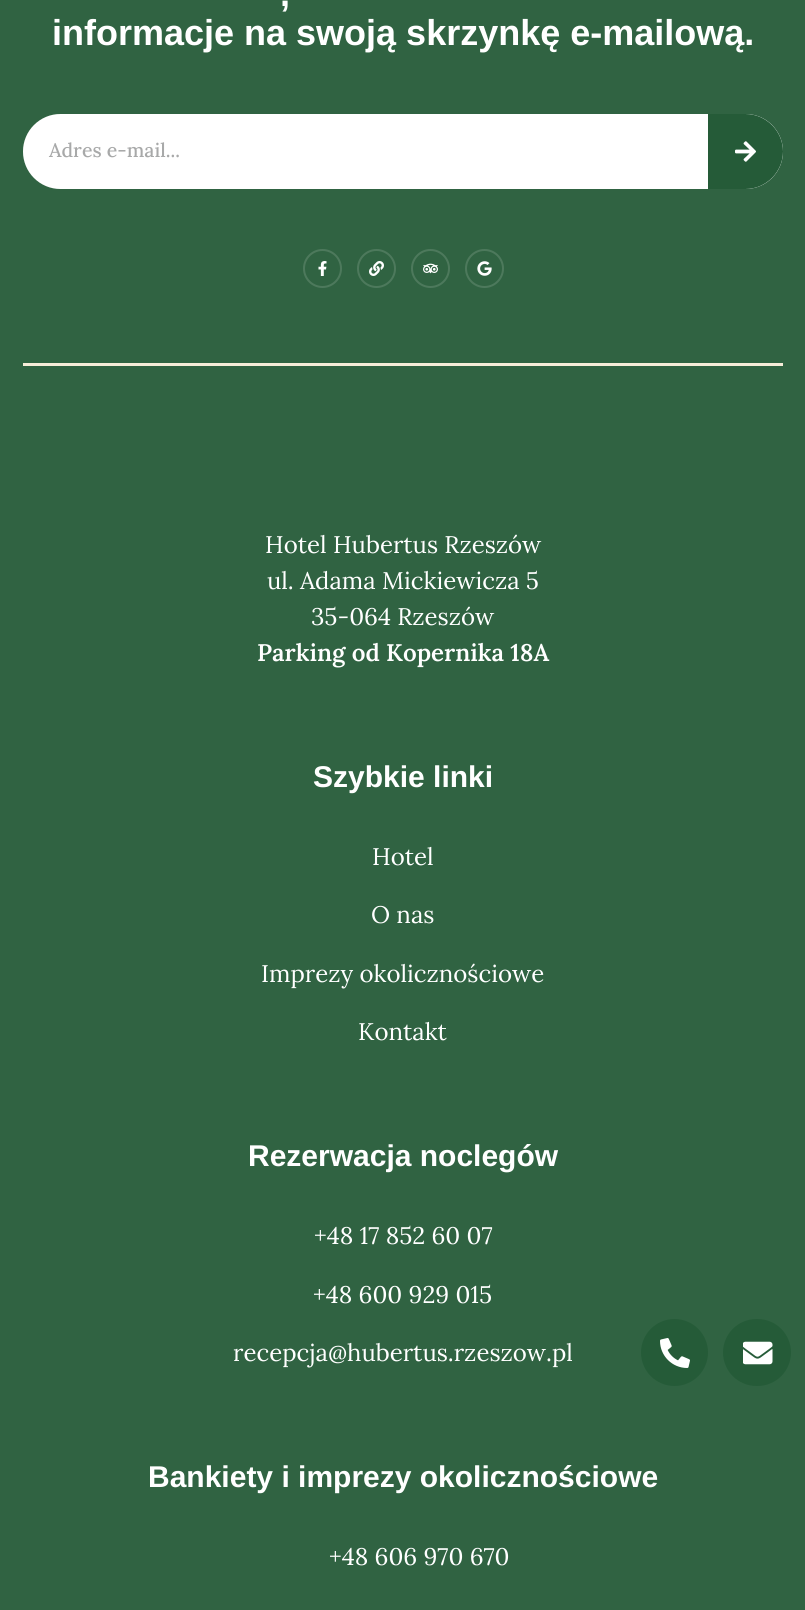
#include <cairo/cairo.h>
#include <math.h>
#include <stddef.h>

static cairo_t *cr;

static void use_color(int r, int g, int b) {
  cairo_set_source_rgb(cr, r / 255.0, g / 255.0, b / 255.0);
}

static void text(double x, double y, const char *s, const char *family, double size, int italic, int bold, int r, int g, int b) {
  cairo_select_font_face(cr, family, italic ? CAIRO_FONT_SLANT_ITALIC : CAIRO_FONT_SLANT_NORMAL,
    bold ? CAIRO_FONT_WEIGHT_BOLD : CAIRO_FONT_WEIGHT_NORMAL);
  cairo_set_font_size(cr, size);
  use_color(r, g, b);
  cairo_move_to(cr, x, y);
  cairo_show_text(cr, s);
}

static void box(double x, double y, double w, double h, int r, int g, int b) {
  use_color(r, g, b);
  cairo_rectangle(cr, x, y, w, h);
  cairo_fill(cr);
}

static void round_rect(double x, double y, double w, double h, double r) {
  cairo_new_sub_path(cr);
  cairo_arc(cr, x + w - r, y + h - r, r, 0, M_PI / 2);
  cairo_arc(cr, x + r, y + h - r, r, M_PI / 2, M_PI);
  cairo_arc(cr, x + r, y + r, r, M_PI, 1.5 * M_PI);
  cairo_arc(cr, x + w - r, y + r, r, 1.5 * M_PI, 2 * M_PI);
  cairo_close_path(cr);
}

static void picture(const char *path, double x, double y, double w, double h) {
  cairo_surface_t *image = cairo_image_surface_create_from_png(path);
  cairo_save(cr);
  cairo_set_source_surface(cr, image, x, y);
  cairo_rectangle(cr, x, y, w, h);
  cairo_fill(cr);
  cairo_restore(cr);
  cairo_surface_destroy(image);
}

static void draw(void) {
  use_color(48, 99, 66);
  cairo_paint(cr);
  use_color(255, 255, 255);
  round_rect(23, 114, 760, 75, 37.5);
  cairo_fill(cr);
  round_rect(24, 115, 683, 73, 36.5);
  cairo_set_source_rgba(cr, 1, 1, 1, 0.13);
  cairo_stroke(cr);
  use_color(37, 91, 56);
  cairo_new_path(cr);
  cairo_move_to(cr, 708, 114);
  cairo_line_to(cr, 745.5, 114);
  cairo_curve_to(cr, 766, 114, 783, 131, 783, 151.5);
  cairo_curve_to(cr, 783, 172, 766, 189, 745.5, 189);
  cairo_line_to(cr, 708, 189);
  cairo_close_path(cr);
  cairo_fill(cr);
  picture("img_01.png", 735, 141, 21, 21);
  cairo_arc(cr, 322.5, 268.5, 18.5, 0, 2 * M_PI);
  use_color(77, 121, 92);
  cairo_stroke(cr);
  picture("img_02.png", 318, 261, 9, 15);
  cairo_arc(cr, 376.5, 268.5, 18.5, 0, 2 * M_PI);
  cairo_stroke(cr);
  picture("img_03.png", 369, 261, 15, 15);
  cairo_arc(cr, 430.5, 268.5, 18.5, 0, 2 * M_PI);
  cairo_stroke(cr);
  picture("img_04.png", 423, 263, 15, 11);
  cairo_arc(cr, 484.5, 268.5, 18.5, 0, 2 * M_PI);
  cairo_stroke(cr);
  picture("img_05.png", 477, 261, 15, 15);
  box(23, 363, 760, 3, 247, 237, 217);
  use_color(37, 91, 56);
  cairo_arc(cr, 674.5, 1352.5, 33.5, 0, 2 * M_PI);
  cairo_fill(cr);
  picture("img_06.png", 660, 1338, 30, 30);
  round_rect(723, 1319, 68, 67, 33.5);
  cairo_fill(cr);
  picture("img_07.png", 743, 1341, 30, 24);
  text(280, 6, ",", "Liberation Sans", 36, 0, 1, 255, 255, 255);
  text(52, 45, "informacje na swoją skrzynkę e-mailową.", "Liberation Sans", 36, 0, 1, 255, 255, 255);
  text(49, 157, "Adres e-mail...", "Lora Medium", 19.5, 0, 0, 168, 169, 169);
  text(265, 553, "Hotel Hubertus Rzeszów", "Lora", 24, 0, 0, 255, 255, 255);
  text(267, 589, "ul. Adama Mickiewicza 5", "Lora", 24, 0, 0, 255, 255, 255);
  text(311, 625, "35-064 Rzeszów", "Lora", 24, 0, 0, 255, 255, 255);
  text(257, 661, "Parking od Kopernika 18A", "Lora SemiBold", 24, 0, 0, 255, 255, 255);
  text(313, 787, "Szybkie linki", "Liberation Sans", 30, 0, 1, 255, 255, 255);
  text(372, 865, "Hotel", "Lora", 24, 0, 0, 255, 255, 255);
  text(371, 923, "O nas", "Lora", 24, 0, 0, 255, 255, 255);
  text(261, 982, "Imprezy okolicznościowe", "Lora", 24, 0, 0, 255, 255, 255);
  text(358, 1040, "Kontakt", "Lora", 24, 0, 0, 255, 255, 255);
  text(248, 1166, "Rezerwacja noclegów", "Liberation Sans", 30, 0, 1, 255, 255, 255);
  text(314, 1244, "+48 17 852 60 07", "Lora", 24, 0, 0, 255, 255, 255);
  text(313, 1303, "+48 600 929 015", "Lora", 24, 0, 0, 255, 255, 255);
  text(233, 1361, "recepcja@hubertus.rzeszow.pl", "Lora", 24, 0, 0, 255, 255, 255);
  text(148, 1487, "Bankiety i imprezy okolicznościowe", "Liberation Sans", 30, 0, 1, 255, 255, 255);
  text(329, 1565, "+48 606 970 670", "Lora", 24, 0, 0, 255, 255, 255);
}

int main(void) {
  cairo_surface_t *surface = cairo_image_surface_create(CAIRO_FORMAT_RGB24, 805, 1610);
  cr = cairo_create(surface);
  cairo_font_options_t *options = cairo_font_options_create();
  cairo_font_options_set_hint_metrics(options, CAIRO_HINT_METRICS_OFF);
  cairo_font_options_set_hint_style(options, CAIRO_HINT_STYLE_NONE);
  cairo_set_font_options(cr, options);
  cairo_set_miter_limit(cr, 4);
  draw();
  cairo_surface_write_to_png(surface, "out.png");
  cairo_font_options_destroy(options);
  cairo_destroy(cr);
  cairo_surface_destroy(surface);
  return 0;
}
